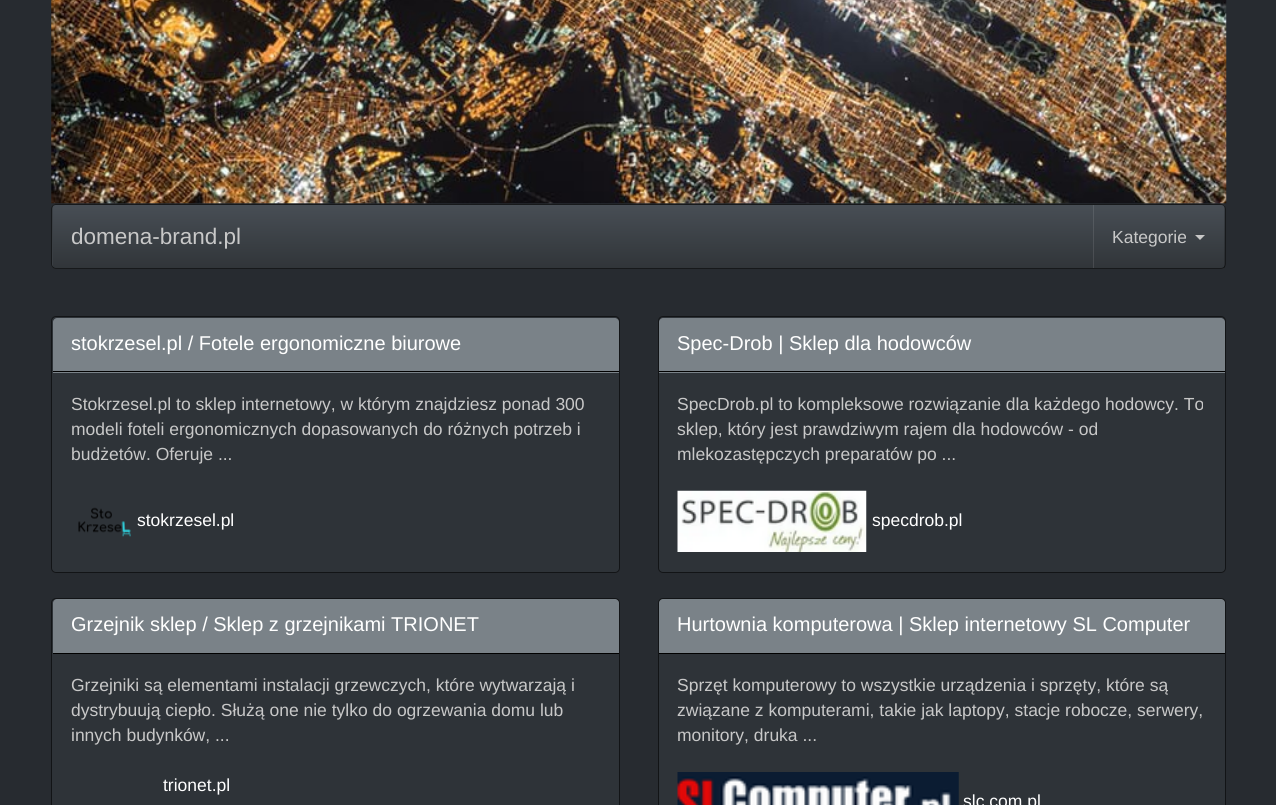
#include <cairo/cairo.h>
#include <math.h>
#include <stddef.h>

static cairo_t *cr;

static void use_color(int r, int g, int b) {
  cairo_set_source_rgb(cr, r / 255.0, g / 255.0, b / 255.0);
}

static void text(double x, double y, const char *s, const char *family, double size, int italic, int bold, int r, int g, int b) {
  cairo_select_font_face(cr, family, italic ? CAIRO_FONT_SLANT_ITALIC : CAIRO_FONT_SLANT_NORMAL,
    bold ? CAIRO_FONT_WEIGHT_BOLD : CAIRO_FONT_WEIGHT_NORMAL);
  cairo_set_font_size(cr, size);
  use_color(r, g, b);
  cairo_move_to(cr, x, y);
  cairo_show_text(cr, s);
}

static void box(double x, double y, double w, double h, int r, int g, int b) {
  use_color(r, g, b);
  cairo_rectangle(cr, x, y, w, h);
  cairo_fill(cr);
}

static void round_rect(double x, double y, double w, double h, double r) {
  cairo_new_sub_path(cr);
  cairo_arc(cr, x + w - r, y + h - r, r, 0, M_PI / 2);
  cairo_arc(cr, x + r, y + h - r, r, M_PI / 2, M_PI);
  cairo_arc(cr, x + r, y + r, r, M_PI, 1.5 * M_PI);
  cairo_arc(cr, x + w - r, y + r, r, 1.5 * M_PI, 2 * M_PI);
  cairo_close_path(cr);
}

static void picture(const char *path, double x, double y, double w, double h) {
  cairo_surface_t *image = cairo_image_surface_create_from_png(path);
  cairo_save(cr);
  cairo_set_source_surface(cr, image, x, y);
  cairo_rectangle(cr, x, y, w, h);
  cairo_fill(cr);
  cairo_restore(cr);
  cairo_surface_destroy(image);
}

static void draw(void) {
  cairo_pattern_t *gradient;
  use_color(39, 43, 48);
  cairo_paint(cr);
  picture("img_01.png", 51, 0, 1176, 204);
  use_color(58, 63, 68);
  round_rect(51, 204, 1175, 65, 5);
  cairo_fill(cr);
  gradient = cairo_pattern_create_linear(639, 205, 639, 268);
  cairo_pattern_add_color_stop_rgba(gradient, 0, 0.282, 0.306, 0.333, 1);
  cairo_pattern_add_color_stop_rgba(gradient, 0.6, 0.227, 0.247, 0.267, 1);
  cairo_pattern_add_color_stop_rgba(gradient, 1, 0.192, 0.208, 0.224, 1);
  cairo_set_source(cr, gradient);
  cairo_pattern_destroy(gradient);
  cairo_rectangle(cr, 53, 205, 1172, 63);
  cairo_fill(cr);
  gradient = cairo_pattern_create_linear(639, 205, 639, 268);
  cairo_pattern_add_color_stop_rgba(gradient, 0, 0.353, 0.376, 0.4, 1);
  cairo_pattern_add_color_stop_rgba(gradient, 0.6, 0.306, 0.322, 0.341, 1);
  cairo_pattern_add_color_stop_rgba(gradient, 1, 0.275, 0.286, 0.302, 1);
  cairo_set_source(cr, gradient);
  cairo_pattern_destroy(gradient);
  cairo_rectangle(cr, 1093, 205, 1, 63);
  cairo_fill(cr);
  round_rect(51.5, 204.5, 1174, 64, 4.5);
  cairo_set_source_rgba(cr, 0, 0, 0, 0.6);
  cairo_set_line_width(cr, 1);
  cairo_stroke(cr);
  cairo_set_source_rgba(cr, 0, 0, 0, 0.2);
  cairo_rectangle(cr, 1224, 205, 1, 63);
  cairo_fill(cr);
  use_color(200, 200, 200);
  cairo_new_path(cr);
  cairo_move_to(cr, 1195, 235);
  cairo_line_to(cr, 1205, 235);
  cairo_line_to(cr, 1200, 240);
  cairo_close_path(cr);
  cairo_fill(cr);
  use_color(46, 51, 56);
  round_rect(51, 316, 569, 257, 5);
  cairo_fill(cr);
  round_rect(51.5, 316.5, 568, 256, 4.5);
  cairo_set_source_rgba(cr, 0, 0, 0, 0.6);
  cairo_stroke(cr);
  use_color(122, 130, 136);
  cairo_new_path(cr);
  cairo_move_to(cr, 57, 318);
  cairo_line_to(cr, 615, 318);
  cairo_curve_to(cr, 617, 318, 619, 320, 619, 322);
  cairo_line_to(cr, 619, 373);
  cairo_line_to(cr, 53, 373);
  cairo_line_to(cr, 53, 322);
  cairo_curve_to(cr, 53, 320, 55, 318, 57, 318);
  cairo_close_path(cr);
  cairo_fill(cr);
  box(53, 371, 566, 1, 0, 0, 0);
  picture("img_02.png", 78, 507, 53, 30);
  use_color(46, 51, 56);
  round_rect(658, 316, 568, 257, 5);
  cairo_fill(cr);
  round_rect(658.5, 316.5, 567, 256, 4.5);
  cairo_set_source_rgba(cr, 0, 0, 0, 0.6);
  cairo_stroke(cr);
  use_color(122, 130, 136);
  cairo_new_path(cr);
  cairo_move_to(cr, 663, 318);
  cairo_line_to(cr, 1221, 318);
  cairo_curve_to(cr, 1223, 318, 1225, 320, 1225, 322);
  cairo_line_to(cr, 1225, 373);
  cairo_line_to(cr, 659, 373);
  cairo_line_to(cr, 659, 322);
  cairo_curve_to(cr, 659, 320, 661, 318, 663, 318);
  cairo_close_path(cr);
  cairo_fill(cr);
  box(659, 371, 566, 1, 0, 0, 0);
  picture("img_03.png", 677, 490, 190, 62);
  use_color(46, 51, 56);
  round_rect(51, 598, 569, 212, 5);
  cairo_fill(cr);
  round_rect(51.5, 598.5, 568, 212, 4.5);
  cairo_set_source_rgba(cr, 0, 0, 0, 0.6);
  cairo_stroke(cr);
  use_color(122, 130, 136);
  cairo_new_path(cr);
  cairo_move_to(cr, 57, 599);
  cairo_line_to(cr, 615, 599);
  cairo_curve_to(cr, 617, 599, 619, 601, 619, 603);
  cairo_line_to(cr, 619, 654);
  cairo_line_to(cr, 53, 654);
  cairo_line_to(cr, 53, 603);
  cairo_curve_to(cr, 53, 601, 55, 599, 57, 599);
  cairo_close_path(cr);
  cairo_fill(cr);
  box(53, 653, 566, 1, 0, 0, 0);
  use_color(46, 51, 56);
  round_rect(658, 598, 568, 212, 5);
  cairo_fill(cr);
  round_rect(658.5, 598.5, 567, 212, 4.5);
  cairo_set_source_rgba(cr, 0, 0, 0, 0.6);
  cairo_stroke(cr);
  use_color(122, 130, 136);
  cairo_new_path(cr);
  cairo_move_to(cr, 663, 599);
  cairo_line_to(cr, 1221, 599);
  cairo_curve_to(cr, 1223, 599, 1225, 601, 1225, 603);
  cairo_line_to(cr, 1225, 654);
  cairo_line_to(cr, 659, 654);
  cairo_line_to(cr, 659, 603);
  cairo_curve_to(cr, 659, 601, 661, 599, 663, 599);
  cairo_close_path(cr);
  cairo_fill(cr);
  box(659, 653, 566, 1, 0, 0, 0);
  picture("img_04.png", 677, 772, 282, 33);
  text(71, 244, "domena-brand.pl", "Liberation Sans", 22.5, 0, 0, 200, 200, 200);
  text(1112, 243, "Kategorie", "Liberation Sans", 17.5, 0, 0, 200, 200, 200);
  text(71, 350, "stokrzesel.pl / Fotele ergonomiczne biurowe", "Liberation Sans", 20, 0, 0, 255, 255, 255);
  text(71, 410, "Stokrzesel.pl to sklep internetowy, w którym znajdziesz ponad 300", "Liberation Sans", 17.5, 0, 0, 200, 200, 200);
  text(71, 435, "modeli foteli ergonomicznych dopasowanych do różnych potrzeb i", "Liberation Sans", 17.5, 0, 0, 200, 200, 200);
  text(71, 460, "budżetów. Oferuje ...", "Liberation Sans", 17.5, 0, 0, 200, 200, 200);
  text(137, 526, "stokrzesel.pl", "Liberation Sans", 17.5, 0, 0, 255, 255, 255);
  text(677, 350, "Spec-Drob | Sklep dla hodowców", "Liberation Sans", 20, 0, 0, 255, 255, 255);
  text(677, 410, "SpecDrob.pl to kompleksowe rozwiązanie dla każdego hodowcy. To", "Liberation Sans", 17.5, 0, 0, 200, 200, 200);
  text(677, 435, "sklep, który jest prawdziwym rajem dla hodowców - od", "Liberation Sans", 17.5, 0, 0, 200, 200, 200);
  text(677, 460, "mlekozastępczych preparatów po ...", "Liberation Sans", 17.5, 0, 0, 200, 200, 200);
  text(872, 526, "specdrob.pl", "Liberation Sans", 17.5, 0, 0, 255, 255, 255);
  text(71, 631, "Grzejnik sklep / Sklep z grzejnikami TRIONET", "Liberation Sans", 20, 0, 0, 255, 255, 255);
  text(71, 691, "Grzejniki są elementami instalacji grzewczych, które wytwarzają i", "Liberation Sans", 17.5, 0, 0, 200, 200, 200);
  text(71, 716, "dystrybuują ciepło. Służą one nie tylko do ogrzewania domu lub", "Liberation Sans", 17.5, 0, 0, 200, 200, 200);
  text(71, 741, "innych budynków, ...", "Liberation Sans", 17.5, 0, 0, 200, 200, 200);
  text(163, 791, "trionet.pl", "Liberation Sans", 17.5, 0, 0, 255, 255, 255);
  text(677, 631, "Hurtownia komputerowa | Sklep internetowy SL Computer", "Liberation Sans", 20, 0, 0, 255, 255, 255);
  text(677, 691, "Sprzęt komputerowy to wszystkie urządzenia i sprzęty, które są", "Liberation Sans", 17.5, 0, 0, 200, 200, 200);
  text(677, 716, "związane z komputerami, takie jak laptopy, stacje robocze, serwery,", "Liberation Sans", 17.5, 0, 0, 200, 200, 200);
  text(677, 741, "monitory, druka ...", "Liberation Sans", 17.5, 0, 0, 200, 200, 200);
  text(963, 807, "slc.com.pl", "Liberation Sans", 17.5, 0, 0, 255, 255, 255);
}

int main(void) {
  cairo_surface_t *surface = cairo_image_surface_create(CAIRO_FORMAT_RGB24, 1276, 805);
  cr = cairo_create(surface);
  cairo_font_options_t *options = cairo_font_options_create();
  cairo_font_options_set_hint_metrics(options, CAIRO_HINT_METRICS_OFF);
  cairo_font_options_set_hint_style(options, CAIRO_HINT_STYLE_NONE);
  cairo_set_font_options(cr, options);
  cairo_set_miter_limit(cr, 4);
  draw();
  cairo_surface_write_to_png(surface, "out.png");
  cairo_font_options_destroy(options);
  cairo_destroy(cr);
  cairo_surface_destroy(surface);
  return 0;
}
